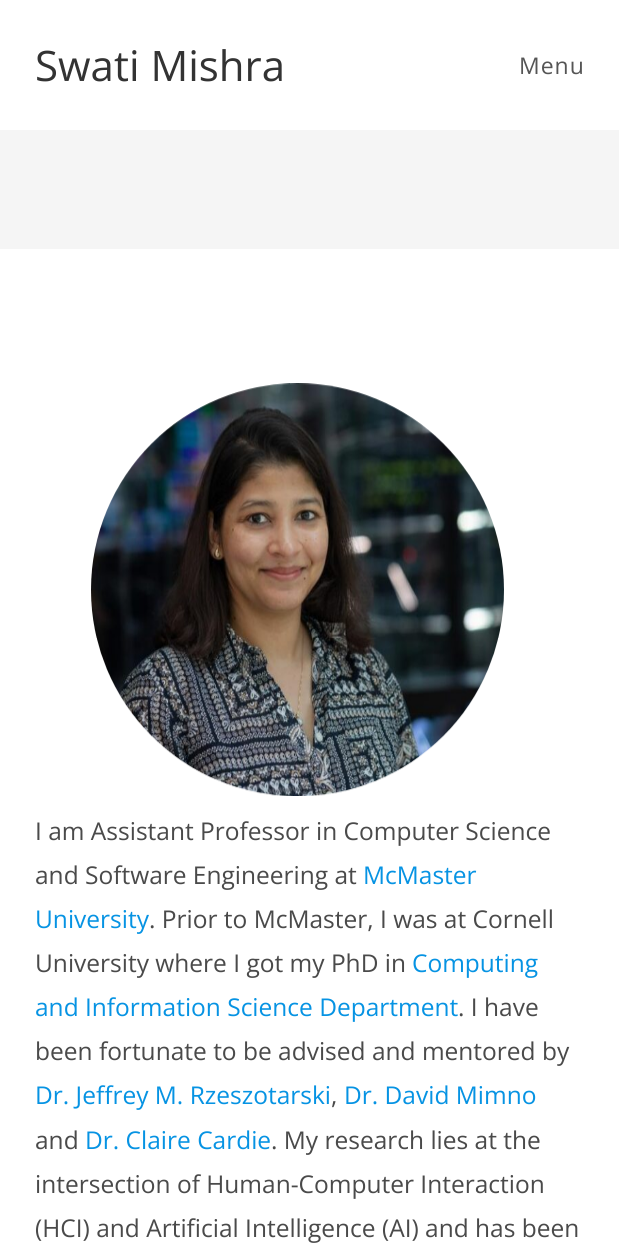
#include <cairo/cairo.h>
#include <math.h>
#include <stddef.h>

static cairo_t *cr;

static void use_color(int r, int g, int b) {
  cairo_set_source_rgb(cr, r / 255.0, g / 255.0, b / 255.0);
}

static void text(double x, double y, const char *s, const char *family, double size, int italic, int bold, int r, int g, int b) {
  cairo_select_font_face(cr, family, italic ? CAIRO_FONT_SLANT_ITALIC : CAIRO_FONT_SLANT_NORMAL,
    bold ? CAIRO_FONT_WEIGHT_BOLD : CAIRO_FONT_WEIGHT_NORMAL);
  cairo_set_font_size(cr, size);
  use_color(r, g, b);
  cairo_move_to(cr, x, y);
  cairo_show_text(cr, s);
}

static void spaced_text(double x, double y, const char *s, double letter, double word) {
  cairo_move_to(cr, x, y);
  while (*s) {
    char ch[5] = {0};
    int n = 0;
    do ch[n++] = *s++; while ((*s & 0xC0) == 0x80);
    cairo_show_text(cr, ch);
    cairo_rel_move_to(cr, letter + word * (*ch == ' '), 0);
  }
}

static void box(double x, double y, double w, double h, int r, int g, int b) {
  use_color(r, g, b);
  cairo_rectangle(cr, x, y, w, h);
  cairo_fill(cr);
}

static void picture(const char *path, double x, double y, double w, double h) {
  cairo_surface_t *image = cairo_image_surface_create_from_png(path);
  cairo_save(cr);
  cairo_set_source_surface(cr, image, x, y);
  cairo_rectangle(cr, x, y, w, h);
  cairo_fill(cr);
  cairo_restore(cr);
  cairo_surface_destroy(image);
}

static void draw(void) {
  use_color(255, 255, 255);
  cairo_paint(cr);
  box(0, 130, 619, 119, 245, 245, 245);
  picture("img_01.png", 91, 383, 413, 413);
  text(35, 81, "Swati Mishra", "Open Sans", 42, 0, 0, 51, 51, 51);
  cairo_set_font_size(cr, 23);
  use_color(85, 85, 85);
  spaced_text(519, 74, "Menu", 1, 0);
  text(35, 840, "I am Assistant Professor in Computer Science", "Open Sans", 24.5, 0, 0, 74, 74, 74);
  text(35, 884, "and Software Engineering at", "Open Sans", 24.5, 0, 0, 74, 74, 74);
  text(363, 884, "McMaster", "Open Sans", 24.5, 0, 0, 6, 147, 227);
  text(35, 928, "University", "Open Sans", 24.5, 0, 0, 6, 147, 227);
  text(149, 928, ". Prior to McMaster, I was at Cornell", "Open Sans", 24.5, 0, 0, 74, 74, 74);
  text(35, 972, "University where I got my PhD in", "Open Sans", 24.5, 0, 0, 74, 74, 74);
  text(412, 972, "Computing", "Open Sans", 24.5, 0, 0, 6, 147, 227);
  text(35, 1016, "and Information Science Department", "Open Sans", 24.5, 0, 0, 6, 147, 227);
  text(458, 1016, ". I have", "Open Sans", 24.5, 0, 0, 74, 74, 74);
  text(35, 1060, "been fortunate to be advised and mentored by", "Open Sans", 24.5, 0, 0, 74, 74, 74);
  text(35, 1104, "Dr. Jeffrey M. Rzeszotarski", "Open Sans", 24.5, 0, 0, 6, 147, 227);
  text(331, 1104, ",", "Open Sans", 24.5, 0, 0, 74, 74, 74);
  text(344, 1104, "Dr. David Mimno", "Open Sans", 24.5, 0, 0, 6, 147, 227);
  text(35, 1149, "and", "Open Sans", 24.5, 0, 0, 74, 74, 74);
  text(85, 1149, "Dr. Claire Cardie", "Open Sans", 24.5, 0, 0, 6, 147, 227);
  text(271, 1149, ". My research lies at the", "Open Sans", 24.5, 0, 0, 74, 74, 74);
  text(35, 1193, "intersection of Human-Computer Interaction", "Open Sans", 24.5, 0, 0, 74, 74, 74);
  text(35, 1237, "(HCI) and Artificial Intelligence (AI) and has been", "Open Sans", 24.5, 0, 0, 74, 74, 74);
}

int main(void) {
  cairo_surface_t *surface = cairo_image_surface_create(CAIRO_FORMAT_RGB24, 619, 1259);
  cr = cairo_create(surface);
  cairo_font_options_t *options = cairo_font_options_create();
  cairo_font_options_set_hint_metrics(options, CAIRO_HINT_METRICS_OFF);
  cairo_font_options_set_hint_style(options, CAIRO_HINT_STYLE_NONE);
  cairo_set_font_options(cr, options);
  cairo_set_miter_limit(cr, 4);
  draw();
  cairo_surface_write_to_png(surface, "out.png");
  cairo_font_options_destroy(options);
  cairo_destroy(cr);
  cairo_surface_destroy(surface);
  return 0;
}
